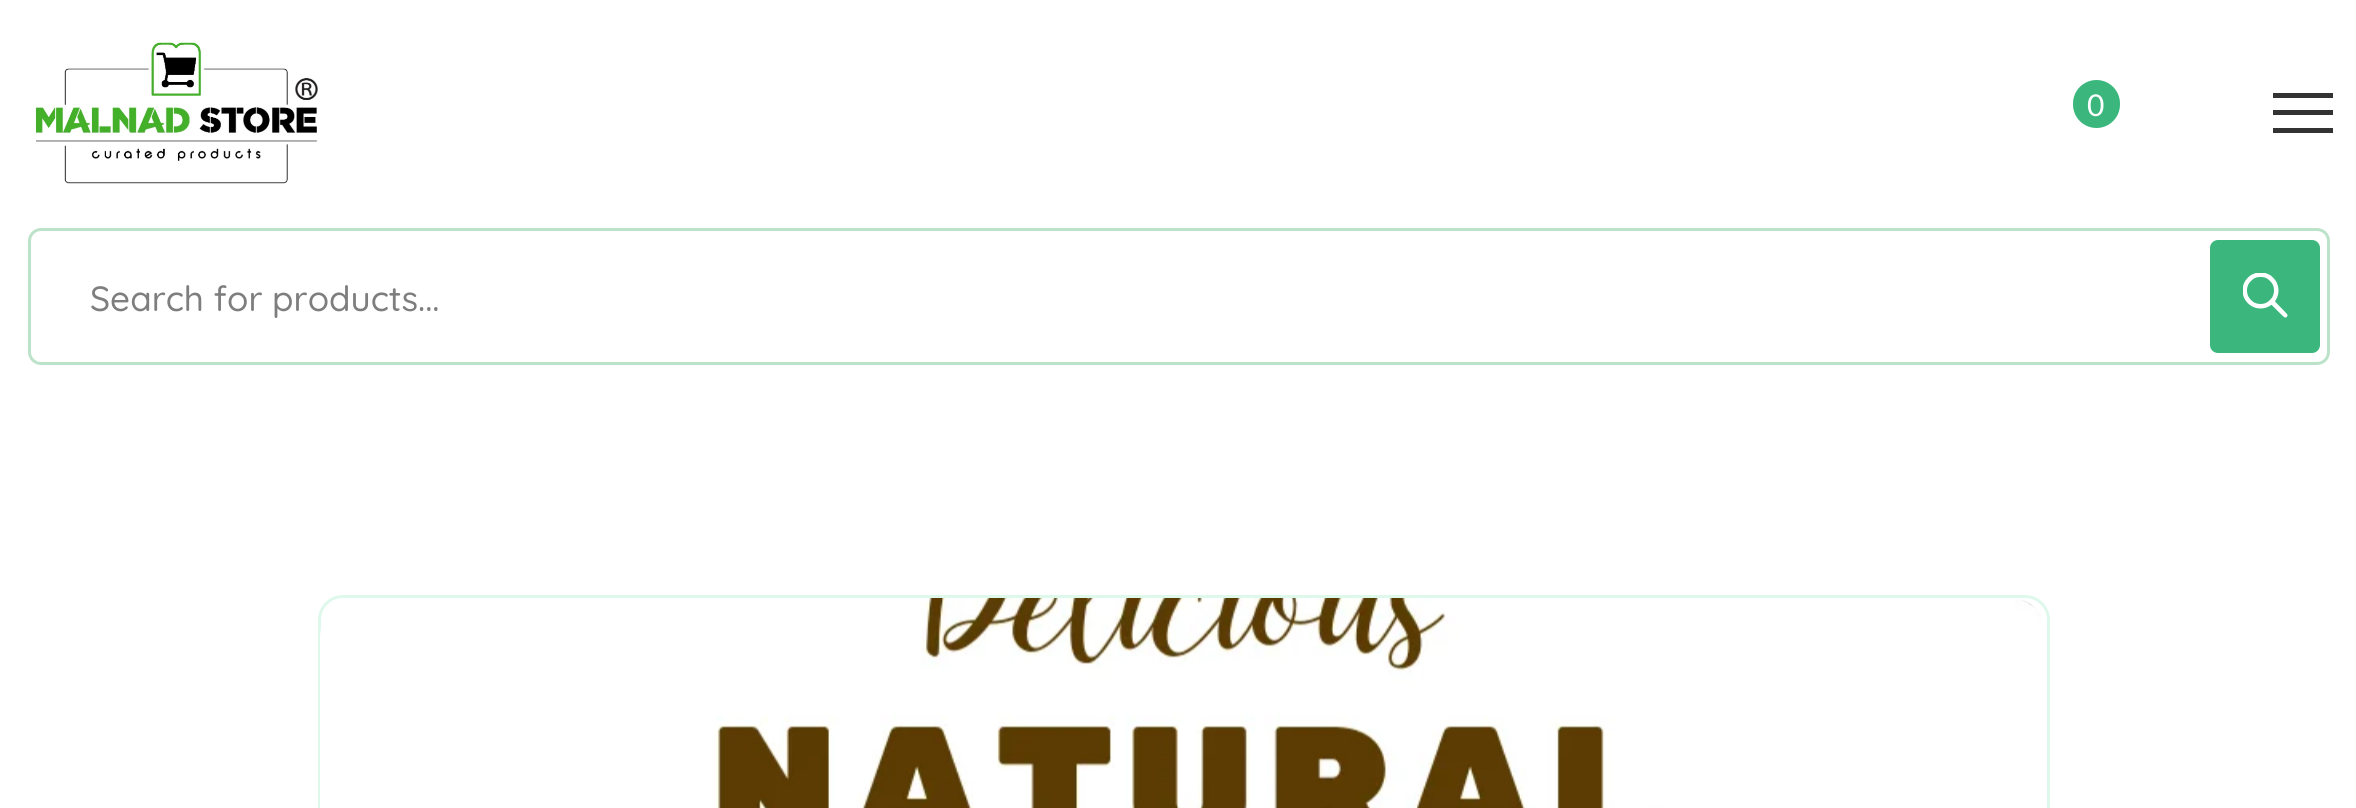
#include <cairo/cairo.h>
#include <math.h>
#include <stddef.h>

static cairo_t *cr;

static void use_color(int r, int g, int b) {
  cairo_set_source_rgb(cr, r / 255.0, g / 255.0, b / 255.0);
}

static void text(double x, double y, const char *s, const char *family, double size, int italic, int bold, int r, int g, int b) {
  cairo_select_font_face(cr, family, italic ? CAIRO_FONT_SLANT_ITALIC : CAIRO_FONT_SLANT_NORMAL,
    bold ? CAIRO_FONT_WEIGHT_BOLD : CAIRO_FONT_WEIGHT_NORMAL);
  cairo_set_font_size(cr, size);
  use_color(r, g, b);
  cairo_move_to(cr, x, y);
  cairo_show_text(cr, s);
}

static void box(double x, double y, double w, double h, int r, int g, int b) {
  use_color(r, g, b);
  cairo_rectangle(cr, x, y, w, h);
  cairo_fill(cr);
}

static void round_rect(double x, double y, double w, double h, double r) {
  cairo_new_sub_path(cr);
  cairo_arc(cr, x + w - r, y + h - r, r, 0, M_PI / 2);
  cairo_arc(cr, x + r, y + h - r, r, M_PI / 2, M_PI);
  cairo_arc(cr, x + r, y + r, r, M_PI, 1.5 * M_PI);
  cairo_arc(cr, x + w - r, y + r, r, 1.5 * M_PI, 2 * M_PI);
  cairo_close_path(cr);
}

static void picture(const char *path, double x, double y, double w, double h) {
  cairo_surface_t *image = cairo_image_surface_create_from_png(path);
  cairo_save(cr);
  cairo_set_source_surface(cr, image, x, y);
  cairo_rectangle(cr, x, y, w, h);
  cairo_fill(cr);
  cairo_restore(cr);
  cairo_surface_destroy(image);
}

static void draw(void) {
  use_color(255, 255, 255);
  cairo_paint(cr);
  picture("img_01.png", 35, 42, 283, 142);
  use_color(59, 183, 126);
  round_rect(2073, 80, 47, 48, 23.5);
  cairo_fill(cr);
  box(2273, 93, 60, 5, 51, 51, 51);
  box(2273, 110, 60, 5, 51, 51, 51);
  box(2273, 128, 60, 5, 51, 51, 51);
  round_rect(29.5, 229.5, 2299, 134, 11.5);
  use_color(188, 227, 201);
  cairo_set_line_width(cr, 3);
  cairo_stroke(cr);
  use_color(59, 183, 126);
  round_rect(2210, 240, 110, 113, 8);
  cairo_fill(cr);
  picture("img_02.png", 2243, 273, 45, 45);
  round_rect(319.5, 596.5, 1729, 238, 23.5);
  use_color(222, 249, 236);
  cairo_stroke(cr);
  picture("img_03.png", 320, 598, 1721, 210);
  text(2087, 116, "0", "Lato", 30, 0, 0, 255, 255, 255);
  text(90, 311, "Search for products...", "Quicksand Medium", 35, 0, 0, 126, 126, 126);
}

int main(void) {
  cairo_surface_t *surface = cairo_image_surface_create(CAIRO_FORMAT_RGB24, 2356, 808);
  cr = cairo_create(surface);
  cairo_font_options_t *options = cairo_font_options_create();
  cairo_font_options_set_hint_metrics(options, CAIRO_HINT_METRICS_OFF);
  cairo_font_options_set_hint_style(options, CAIRO_HINT_STYLE_NONE);
  cairo_set_font_options(cr, options);
  cairo_set_miter_limit(cr, 4);
  draw();
  cairo_surface_write_to_png(surface, "out.png");
  cairo_font_options_destroy(options);
  cairo_destroy(cr);
  cairo_surface_destroy(surface);
  return 0;
}
